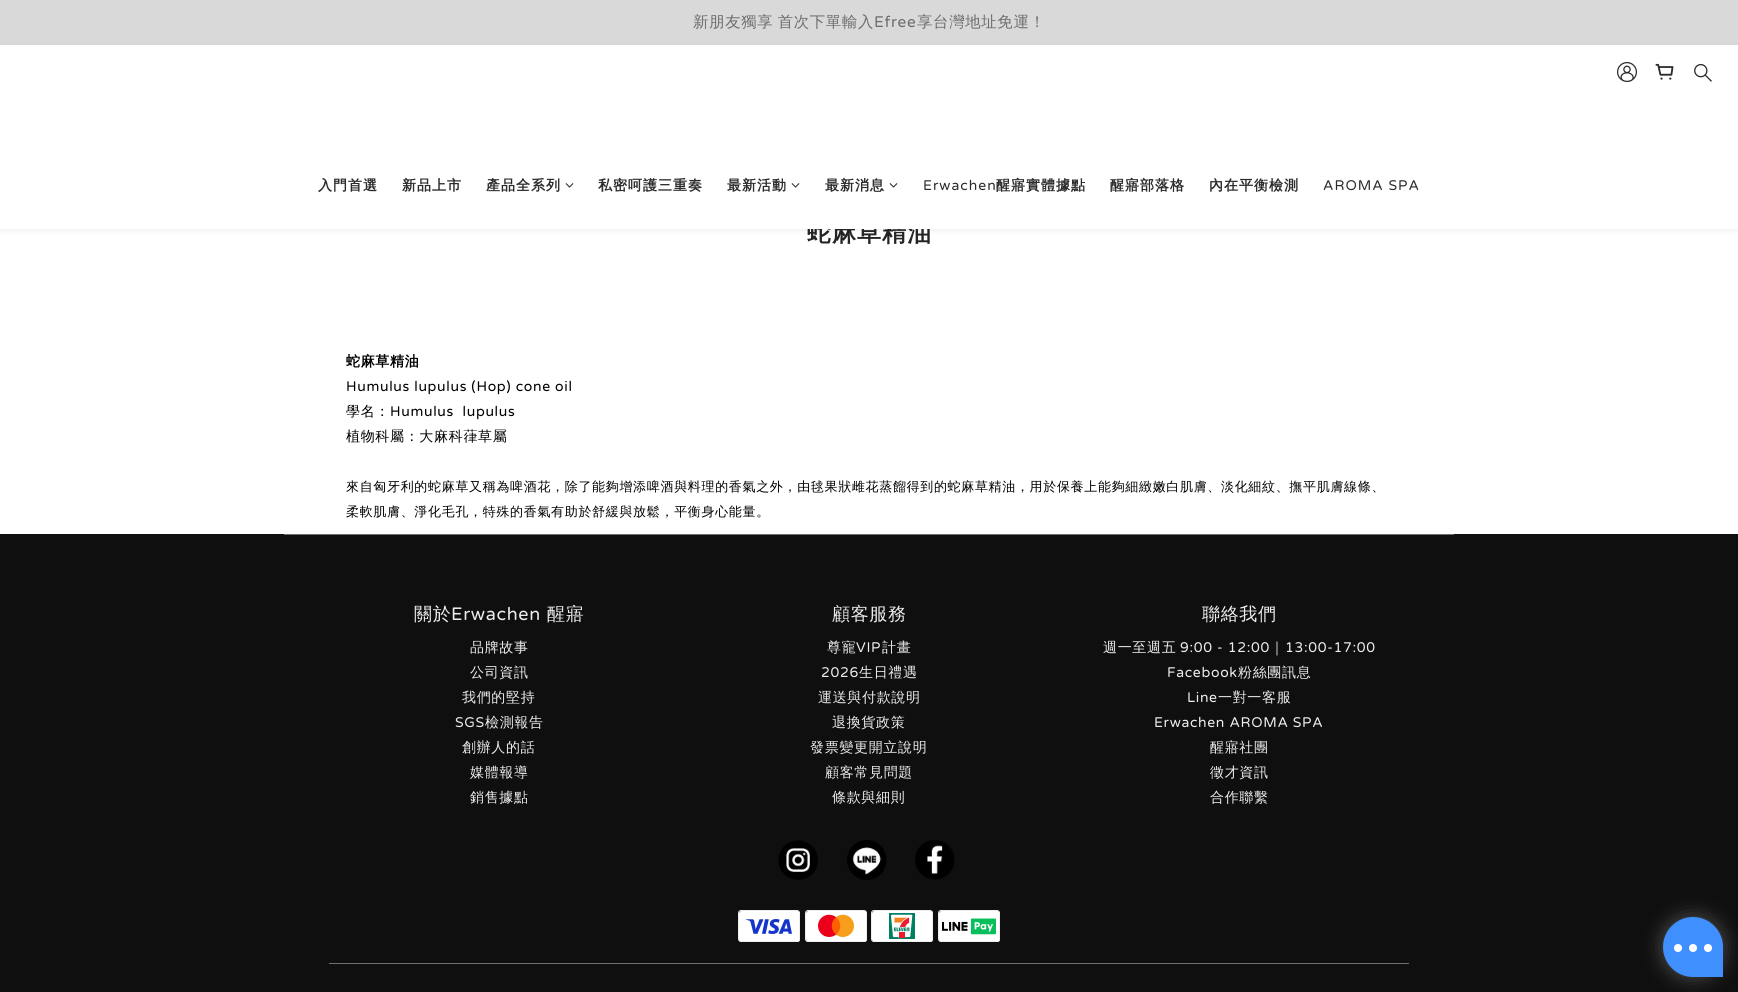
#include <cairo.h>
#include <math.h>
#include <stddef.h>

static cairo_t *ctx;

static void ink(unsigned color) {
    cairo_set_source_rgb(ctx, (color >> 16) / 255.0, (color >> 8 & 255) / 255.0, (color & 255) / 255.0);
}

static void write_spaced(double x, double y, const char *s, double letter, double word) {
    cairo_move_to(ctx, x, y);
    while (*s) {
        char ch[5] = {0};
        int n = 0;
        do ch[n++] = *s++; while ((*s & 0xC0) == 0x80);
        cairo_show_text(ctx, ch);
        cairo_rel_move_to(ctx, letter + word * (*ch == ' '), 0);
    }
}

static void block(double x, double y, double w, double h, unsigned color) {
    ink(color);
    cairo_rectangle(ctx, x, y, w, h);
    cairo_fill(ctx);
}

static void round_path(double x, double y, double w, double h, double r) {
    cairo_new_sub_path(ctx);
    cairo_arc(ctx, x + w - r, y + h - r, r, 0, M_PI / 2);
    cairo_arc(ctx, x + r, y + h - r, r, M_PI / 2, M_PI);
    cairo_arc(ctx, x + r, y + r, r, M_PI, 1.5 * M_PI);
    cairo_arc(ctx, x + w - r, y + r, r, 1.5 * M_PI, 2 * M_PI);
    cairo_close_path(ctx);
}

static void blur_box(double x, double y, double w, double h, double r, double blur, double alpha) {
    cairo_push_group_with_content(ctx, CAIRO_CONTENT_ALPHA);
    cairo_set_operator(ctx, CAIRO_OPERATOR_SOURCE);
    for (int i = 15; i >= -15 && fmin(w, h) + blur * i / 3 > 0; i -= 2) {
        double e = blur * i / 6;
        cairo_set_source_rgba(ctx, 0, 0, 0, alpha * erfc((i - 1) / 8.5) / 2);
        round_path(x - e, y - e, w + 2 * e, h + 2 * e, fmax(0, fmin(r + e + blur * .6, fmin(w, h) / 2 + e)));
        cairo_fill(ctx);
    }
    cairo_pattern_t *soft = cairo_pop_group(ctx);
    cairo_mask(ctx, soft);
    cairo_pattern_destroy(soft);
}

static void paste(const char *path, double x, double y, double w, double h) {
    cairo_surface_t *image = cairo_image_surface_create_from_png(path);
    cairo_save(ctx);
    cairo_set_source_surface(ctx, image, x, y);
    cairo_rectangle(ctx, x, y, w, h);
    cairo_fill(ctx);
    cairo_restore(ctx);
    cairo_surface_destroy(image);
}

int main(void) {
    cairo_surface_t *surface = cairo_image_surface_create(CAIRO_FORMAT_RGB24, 1738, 992);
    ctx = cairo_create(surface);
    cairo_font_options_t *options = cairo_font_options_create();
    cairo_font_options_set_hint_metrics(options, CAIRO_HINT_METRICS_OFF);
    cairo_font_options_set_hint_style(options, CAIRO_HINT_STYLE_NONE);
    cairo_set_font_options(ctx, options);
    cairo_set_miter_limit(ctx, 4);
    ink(0xffffff);
    cairo_paint(ctx);
    block(0, 0, 1738, 45, 0xd9d9d9);
    cairo_select_font_face(ctx, "WenQuanYi Zen Hei Medium", CAIRO_FONT_SLANT_NORMAL, CAIRO_FONT_WEIGHT_NORMAL);
    cairo_set_font_size(ctx, 15.4);
    ink(0x6d6d6d);
    write_spaced(693, 27, "新朋友獨享 首次下單輸入", 0.67, -1);
    cairo_select_font_face(ctx, "Varela Round", CAIRO_FONT_SLANT_NORMAL, CAIRO_FONT_WEIGHT_NORMAL);
    write_spaced(874, 27, "Efree", 0.67, 0);
    cairo_select_font_face(ctx, "WenQuanYi Zen Hei Medium", CAIRO_FONT_SLANT_NORMAL, CAIRO_FONT_WEIGHT_NORMAL);
    write_spaced(917, 27, "享台灣地址免運！", 0.67, 0);
    ink(0x000000);
    blur_box(0, 47, 1738, 184, 0, 3, 0.06);
    cairo_select_font_face(ctx, "WenQuanYi Zen Hei", CAIRO_FONT_SLANT_NORMAL, CAIRO_FONT_WEIGHT_BOLD);
    cairo_set_font_size(ctx, 24);
    ink(0x242424);
    write_spaced(807, 241, "蛇麻草精油", 1, 0);
    block(0, 45, 1738, 184, 0xffffff);
    paste("pic1.png", 1617, 62, 20, 20);
    paste("pic2.png", 1655, 63, 19, 17);
    paste("pic3.png", 1694, 63, 18, 19);
    cairo_set_font_size(ctx, 14);
    ink(0x2c2c2c);
    write_spaced(318, 190, "入門首選", 1, 0);
    write_spaced(402, 190, "新品上市", 1, 0);
    write_spaced(486, 190, "產品全系列", 1, 0);
    paste("pic4.png", 565, 183, 9, 5);
    write_spaced(598, 190, "私密呵護三重奏", 1, 0);
    write_spaced(727, 190, "最新活動", 1, 0);
    paste("pic4.png", 791, 183, 9, 5);
    write_spaced(825, 190, "最新消息", 1, 0);
    paste("pic4.png", 889, 183, 9, 5);
    cairo_select_font_face(ctx, "Varela Round", CAIRO_FONT_SLANT_NORMAL, CAIRO_FONT_WEIGHT_NORMAL);
    write_spaced(923, 190, "Erwachen", 1, 0);
    cairo_select_font_face(ctx, "WenQuanYi Zen Hei", CAIRO_FONT_SLANT_NORMAL, CAIRO_FONT_WEIGHT_BOLD);
    write_spaced(996, 190, "醒寤實體據點", 1, 0);
    write_spaced(1110, 190, "醒寤部落格", 1, 0);
    write_spaced(1209, 190, "內在平衡檢測", 1, 0);
    cairo_select_font_face(ctx, "Varela Round", CAIRO_FONT_SLANT_NORMAL, CAIRO_FONT_WEIGHT_NORMAL);
    write_spaced(1323, 190, "AROMA SPA", 1, 0);
    cairo_select_font_face(ctx, "WenQuanYi Zen Hei", CAIRO_FONT_SLANT_NORMAL, CAIRO_FONT_WEIGHT_BOLD);
    ink(0x000000);
    write_spaced(346, 366, "蛇麻草精油", 0.67, 0);
    cairo_select_font_face(ctx, "Varela Round", CAIRO_FONT_SLANT_NORMAL, CAIRO_FONT_WEIGHT_NORMAL);
    write_spaced(346, 391, "Humulus lupulus (Hop) cone oil", 0.67, 0);
    cairo_select_font_face(ctx, "WenQuanYi Zen Hei Medium", CAIRO_FONT_SLANT_NORMAL, CAIRO_FONT_WEIGHT_NORMAL);
    write_spaced(346, 416, "學名：", 0.67, 0);
    cairo_select_font_face(ctx, "Varela Round", CAIRO_FONT_SLANT_NORMAL, CAIRO_FONT_WEIGHT_NORMAL);
    write_spaced(390, 416, "Humulus  lupulus", 0.67, 0);
    cairo_select_font_face(ctx, "WenQuanYi Zen Hei Medium", CAIRO_FONT_SLANT_NORMAL, CAIRO_FONT_WEIGHT_NORMAL);
    write_spaced(346, 441, "植物科屬：大麻科葎草屬", 0.67, 0);
    cairo_set_font_size(ctx, 13);
    write_spaced(346, 491, "來自匈牙利的蛇麻草又稱為啤酒花，除了能夠增添啤酒與料理的香氣之外，由毬果狀雌花蒸餾得到的蛇麻草精油，用於保養上能夠細緻嫩白肌膚、淡化細紋、撫平肌膚線條、", 0.67, 0);
    write_spaced(346, 516, "柔軟肌膚、淨化毛孔，特殊的香氣有助於舒緩與放鬆，平衡身心能量。", 0.67, 0);
    block(0, 534, 1738, 458, 0x0f0f0f);
    block(284, 534, 1170, 1, 0x6e6e6e);
    cairo_set_font_size(ctx, 18);
    ink(0xededed);
    write_spaced(414, 620, "關於", 0.67, 0);
    cairo_select_font_face(ctx, "Varela Round", CAIRO_FONT_SLANT_NORMAL, CAIRO_FONT_WEIGHT_NORMAL);
    write_spaced(451, 620, "Erwachen", 0.67, 0);
    cairo_select_font_face(ctx, "WenQuanYi Zen Hei Medium", CAIRO_FONT_SLANT_NORMAL, CAIRO_FONT_WEIGHT_NORMAL);
    write_spaced(547, 620, "醒寤", 0.67, 0);
    cairo_set_font_size(ctx, 14);
    write_spaced(470, 652, "品牌故事", 0.67, 0);
    write_spaced(470, 677, "公司資訊", 0.67, 0);
    write_spaced(462, 702, "我們的堅持", 0.67, 0);
    cairo_select_font_face(ctx, "Varela Round", CAIRO_FONT_SLANT_NORMAL, CAIRO_FONT_WEIGHT_NORMAL);
    write_spaced(455, 727, "SGS", 0.67, 0);
    cairo_select_font_face(ctx, "WenQuanYi Zen Hei Medium", CAIRO_FONT_SLANT_NORMAL, CAIRO_FONT_WEIGHT_NORMAL);
    write_spaced(485, 727, "檢測報告", 0.67, 0);
    write_spaced(462, 752, "創辦人的話", 0.67, 0);
    write_spaced(470, 777, "媒體報導", 0.67, 0);
    write_spaced(470, 802, "銷售據點", 0.67, 0);
    cairo_set_font_size(ctx, 18);
    write_spaced(832, 620, "顧客服務", 0.67, 0);
    cairo_set_font_size(ctx, 14);
    write_spaced(827, 652, "尊寵", 0.67, 0);
    cairo_select_font_face(ctx, "Varela Round", CAIRO_FONT_SLANT_NORMAL, CAIRO_FONT_WEIGHT_NORMAL);
    write_spaced(856, 652, "VIP", 0.67, 0);
    cairo_select_font_face(ctx, "WenQuanYi Zen Hei Medium", CAIRO_FONT_SLANT_NORMAL, CAIRO_FONT_WEIGHT_NORMAL);
    write_spaced(882, 652, "計畫", 0.67, 0);
    cairo_select_font_face(ctx, "Varela Round", CAIRO_FONT_SLANT_NORMAL, CAIRO_FONT_WEIGHT_NORMAL);
    write_spaced(821, 677, "2026", 0.67, 0);
    cairo_select_font_face(ctx, "WenQuanYi Zen Hei Medium", CAIRO_FONT_SLANT_NORMAL, CAIRO_FONT_WEIGHT_NORMAL);
    write_spaced(859, 677, "生日禮遇", 0.67, 0);
    write_spaced(818, 702, "運送與付款說明", 0.67, 0);
    write_spaced(832, 727, "退換貨政策", 0.67, 0);
    write_spaced(810, 752, "發票變更開立說明", 0.67, 0);
    write_spaced(825, 777, "顧客常見問題", 0.67, 0);
    write_spaced(832, 802, "條款與細則", 0.67, 0);
    cairo_set_font_size(ctx, 18);
    write_spaced(1202, 620, "聯絡我們", 0.67, 0);
    cairo_set_font_size(ctx, 14);
    write_spaced(1103, 652, "週一至週五", 0.67, 0);
    cairo_select_font_face(ctx, "Varela Round", CAIRO_FONT_SLANT_NORMAL, CAIRO_FONT_WEIGHT_NORMAL);
    write_spaced(1180, 652, "9:00 - 12:00", 0.67, 0);
    cairo_select_font_face(ctx, "WenQuanYi Zen Hei Medium", CAIRO_FONT_SLANT_NORMAL, CAIRO_FONT_WEIGHT_NORMAL);
    write_spaced(1270, 652, "｜", 0.67, 0);
    cairo_select_font_face(ctx, "Varela Round", CAIRO_FONT_SLANT_NORMAL, CAIRO_FONT_WEIGHT_NORMAL);
    write_spaced(1285, 652, "13:00-17:00", 0.67, 0);
    write_spaced(1167, 677, "Facebook", 0.67, 0);
    cairo_select_font_face(ctx, "WenQuanYi Zen Hei Medium", CAIRO_FONT_SLANT_NORMAL, CAIRO_FONT_WEIGHT_NORMAL);
    write_spaced(1238, 677, "粉絲團訊息", 0.67, 0);
    cairo_select_font_face(ctx, "Varela Round", CAIRO_FONT_SLANT_NORMAL, CAIRO_FONT_WEIGHT_NORMAL);
    write_spaced(1187, 702, "Line", 0.67, 0);
    cairo_select_font_face(ctx, "WenQuanYi Zen Hei Medium", CAIRO_FONT_SLANT_NORMAL, CAIRO_FONT_WEIGHT_NORMAL);
    write_spaced(1218, 702, "一對一客服", 0.67, 0);
    cairo_select_font_face(ctx, "Varela Round", CAIRO_FONT_SLANT_NORMAL, CAIRO_FONT_WEIGHT_NORMAL);
    write_spaced(1154, 727, "Erwachen AROMA SPA", 0.67, 0);
    cairo_select_font_face(ctx, "WenQuanYi Zen Hei Medium", CAIRO_FONT_SLANT_NORMAL, CAIRO_FONT_WEIGHT_NORMAL);
    write_spaced(1210, 752, "醒寤社團", 0.67, 0);
    write_spaced(1210, 777, "徵才資訊", 0.67, 0);
    write_spaced(1210, 802, "合作聯繫", 0.67, 0);
    paste("pic5.png", 778, 840, 40, 40);
    paste("pic6.png", 847, 840, 40, 40);
    paste("pic7.png", 915, 840, 40, 40);
    paste("pic8.png", 738, 910, 62, 32);
    paste("pic9.png", 805, 910, 62, 32);
    paste("pic10.png", 871, 910, 62, 32);
    paste("pic11.png", 938, 910, 62, 32);
    block(329, 963, 1080, 1, 0x6e6e6e);
    ink(0x777777);
    blur_box(1663, 917, 60, 60, 30, 10, 0.64);
    ink(0x408fff);
    cairo_new_path(ctx);
    cairo_move_to(ctx, 1693, 917);
    cairo_curve_to(ctx, 1709.5, 917, 1723, 930.5, 1723, 947);
    cairo_line_to(ctx, 1723, 977);
    cairo_line_to(ctx, 1693, 977);
    cairo_curve_to(ctx, 1676.5, 977, 1663, 963.5, 1663, 947);
    cairo_curve_to(ctx, 1663, 930.5, 1676.5, 917, 1693, 917);
    cairo_close_path(ctx);
    cairo_fill(ctx);
    ink(0xffffff);
    cairo_arc(ctx, 1678, 948, 4, 0, 2 * M_PI);
    cairo_fill(ctx);
    cairo_arc(ctx, 1693, 948, 4, 0, 2 * M_PI);
    cairo_fill(ctx);
    cairo_arc(ctx, 1708, 948, 4, 0, 2 * M_PI);
    cairo_fill(ctx);
    cairo_surface_write_to_png(surface, "screenshot.png");
    cairo_font_options_destroy(options);
    cairo_destroy(ctx);
    cairo_surface_destroy(surface);
    return 0;
}
